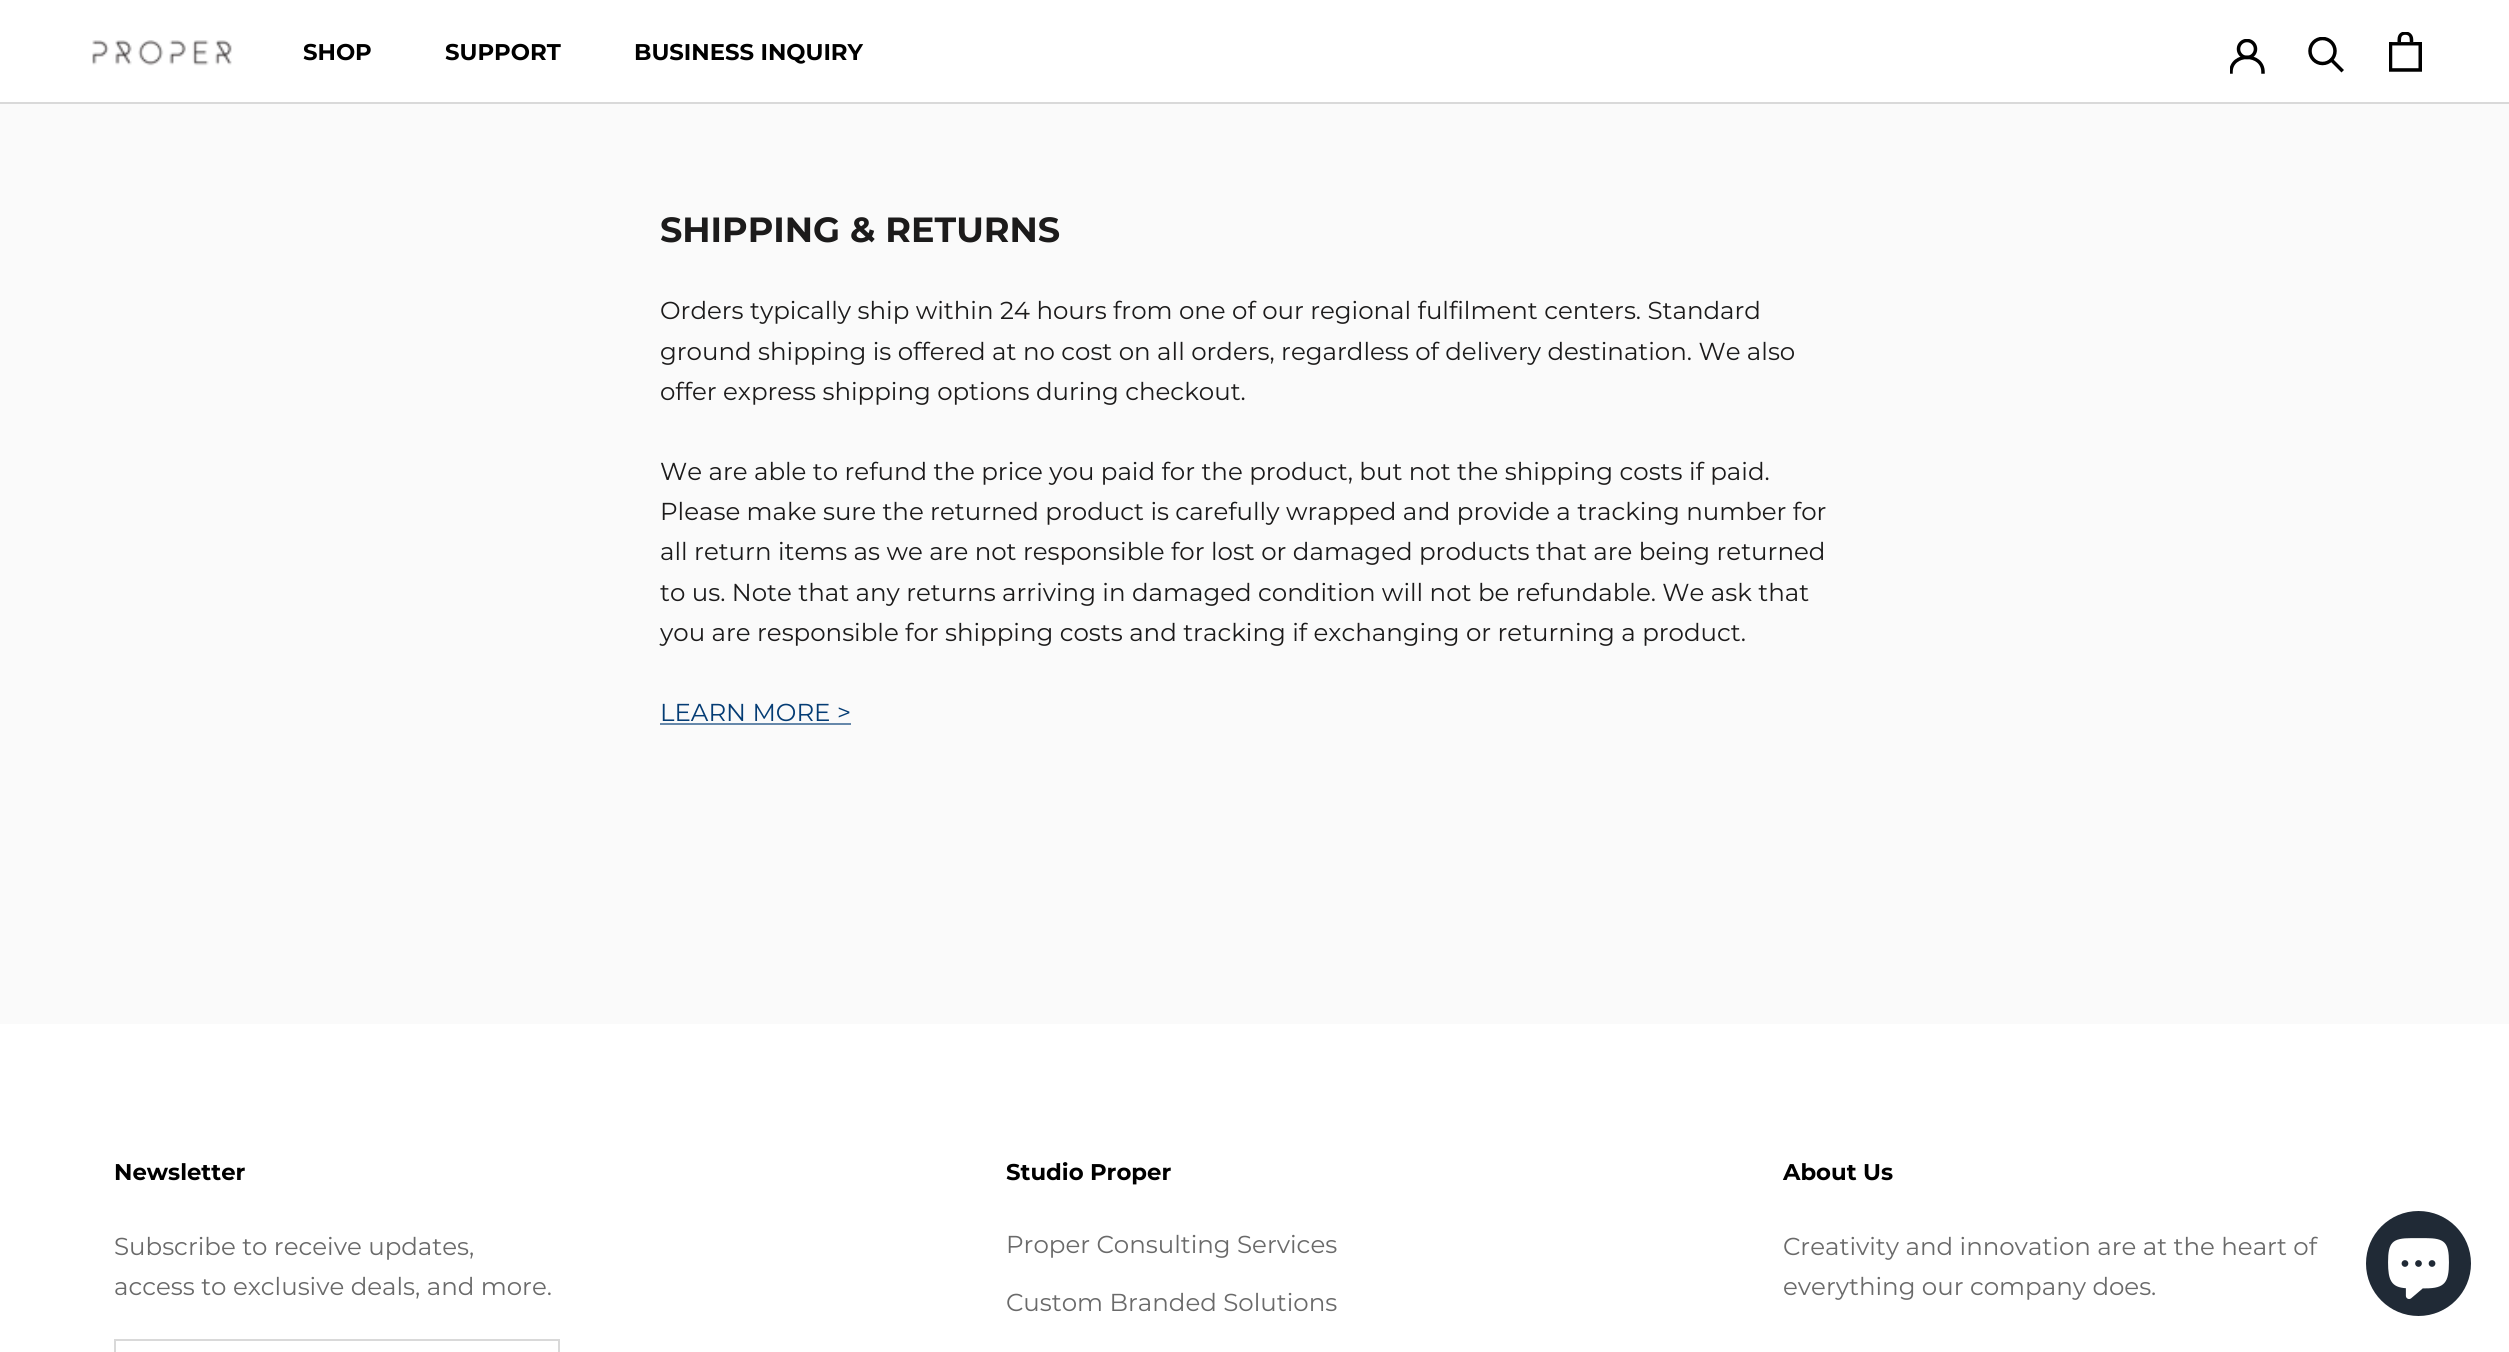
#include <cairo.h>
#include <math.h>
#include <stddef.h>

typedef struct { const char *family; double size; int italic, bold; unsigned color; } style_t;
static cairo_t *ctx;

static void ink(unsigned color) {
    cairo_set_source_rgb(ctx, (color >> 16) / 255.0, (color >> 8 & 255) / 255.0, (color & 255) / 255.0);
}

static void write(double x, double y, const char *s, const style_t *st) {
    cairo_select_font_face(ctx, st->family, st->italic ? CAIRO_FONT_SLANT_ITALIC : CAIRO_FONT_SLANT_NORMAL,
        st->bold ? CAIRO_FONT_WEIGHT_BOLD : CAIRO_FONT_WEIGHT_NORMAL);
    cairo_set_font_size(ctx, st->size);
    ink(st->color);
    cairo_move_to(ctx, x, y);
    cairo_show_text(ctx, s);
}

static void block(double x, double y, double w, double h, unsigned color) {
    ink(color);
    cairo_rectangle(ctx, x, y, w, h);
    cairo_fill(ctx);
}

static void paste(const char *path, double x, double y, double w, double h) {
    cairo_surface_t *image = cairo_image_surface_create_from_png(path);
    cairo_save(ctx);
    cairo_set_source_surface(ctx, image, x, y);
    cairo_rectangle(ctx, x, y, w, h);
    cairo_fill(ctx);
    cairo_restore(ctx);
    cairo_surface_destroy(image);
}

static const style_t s1 = {"Montserrat", 22.75, 0, 1, 0x000000};
static const style_t s2 = {"Montserrat", 35, 0, 1, 0x1c1b1b};
static const style_t s3 = {"Montserrat", 24.5, 0, 0, 0x1c1b1b};
static const style_t s4 = {"Montserrat", 24.5, 0, 0, 0x043c74};
static const style_t s5 = {"Montserrat", 24.5, 0, 0, 0x6a6a6a};

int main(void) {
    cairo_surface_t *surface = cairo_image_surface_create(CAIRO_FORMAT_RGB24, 2509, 1352);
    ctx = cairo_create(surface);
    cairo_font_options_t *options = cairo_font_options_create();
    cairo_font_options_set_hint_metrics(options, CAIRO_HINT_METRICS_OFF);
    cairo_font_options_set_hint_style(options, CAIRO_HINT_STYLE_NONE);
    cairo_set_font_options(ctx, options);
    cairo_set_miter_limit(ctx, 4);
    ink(0xfafafa);
    cairo_paint(ctx);
    block(0, 0, 2509, 102, 0xffffff);
    block(0, 102, 2509, 2, 0xd9d9d9);
    paste("pic1.png", 92, 40, 140, 26);
    write(303, 60, "SHOP", &s1);
    write(445, 60, "SUPPORT", &s1);
    write(634, 60, "BUSINESS INQUIRY", &s1);
    cairo_save(ctx);
    cairo_rectangle(ctx, 2230, 39, 35, 35);
    cairo_clip(ctx);
    cairo_new_path(ctx);
    cairo_move_to(ctx, 2231, 72);
    cairo_curve_to(ctx, 2231, 52.5, 2263, 52.5, 2263, 72);
    cairo_set_line_width(ctx, 3.5);
    cairo_set_line_cap(ctx, CAIRO_LINE_CAP_SQUARE);
    cairo_stroke(ctx);
    cairo_arc(ctx, 2247, 49, 8.5, 0, 2 * M_PI);
    cairo_set_line_cap(ctx, CAIRO_LINE_CAP_BUTT);
    cairo_stroke(ctx);
    cairo_restore(ctx);
    cairo_new_path(ctx);
    cairo_move_to(ctx, 2341.5, 70);
    cairo_line_to(ctx, 2331.5, 60);
    cairo_set_line_width(ctx, 3.5);
    cairo_set_line_cap(ctx, CAIRO_LINE_CAP_SQUARE);
    cairo_stroke(ctx);
    cairo_save(ctx);
    cairo_rectangle(ctx, 2308, 37, 37, 37);
    cairo_clip(ctx);
    cairo_arc(ctx, 2322.5, 51, 12.5, 0, 2 * M_PI);
    cairo_set_line_cap(ctx, CAIRO_LINE_CAP_BUTT);
    cairo_stroke(ctx);
    cairo_restore(ctx);
    paste("pic2.png", 2389, 32, 33, 40);
    write(660, 242, "SHIPPING & RETURNS", &s2);
    write(660, 319, "Orders typically ship within 24 hours from one of our regional fulfilment centers. Standard", &s3);
    write(660, 360, "ground shipping is offered at no cost on all orders, regardless of delivery destination. We also", &s3);
    write(660, 400, "offer express shipping options during checkout.", &s3);
    write(660, 480, "We are able to refund the price you paid for the product, but not the shipping costs if paid.", &s3);
    write(660, 520, "Please make sure the returned product is carefully wrapped and provide a tracking number for", &s3);
    write(660, 560, "all return items as we are not responsible for lost or damaged products that are being returned", &s3);
    write(660, 601, "to us. Note that any returns arriving in damaged condition will not be refundable. We ask that", &s3);
    write(660, 641, "you are responsible for shipping costs and tracking if exchanging or returning a product.", &s3);
    write(660, 721, "LEARN MORE >", &s4);
    block(660, 723, 191, 2, 0x6688aa);
    block(0, 1024, 2509, 328, 0xffffff);
    write(114, 1180, "Newsletter", &s1);
    write(114, 1255, "Subscribe to receive updates,", &s5);
    write(114, 1295, "access to exclusive deals, and more.", &s5);
    cairo_rectangle(ctx, 115, 1340, 444, 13);
    ink(0xd9d9d9);
    cairo_set_line_width(ctx, 2);
    cairo_set_line_cap(ctx, CAIRO_LINE_CAP_BUTT);
    cairo_stroke(ctx);
    write(1006, 1180, "Studio Proper", &s1);
    write(1006, 1253, "Proper Consulting Services", &s5);
    write(1006, 1311, "Custom Branded Solutions", &s5);
    write(1783, 1180, "About Us", &s1);
    write(1783, 1255, "Creativity and innovation are at the heart of", &s5);
    write(1783, 1295, "everything our company does.", &s5);
    ink(0x202a36);
    cairo_new_path(ctx);
    cairo_arc(ctx, 2418.5, 1263.5, 52.5, 0, 2 * M_PI);
    cairo_fill(ctx);
    paste("pic3.png", 2388, 1238, 61, 61);
    cairo_surface_write_to_png(surface, "screenshot.png");
    cairo_font_options_destroy(options);
    cairo_destroy(ctx);
    cairo_surface_destroy(surface);
    return 0;
}
